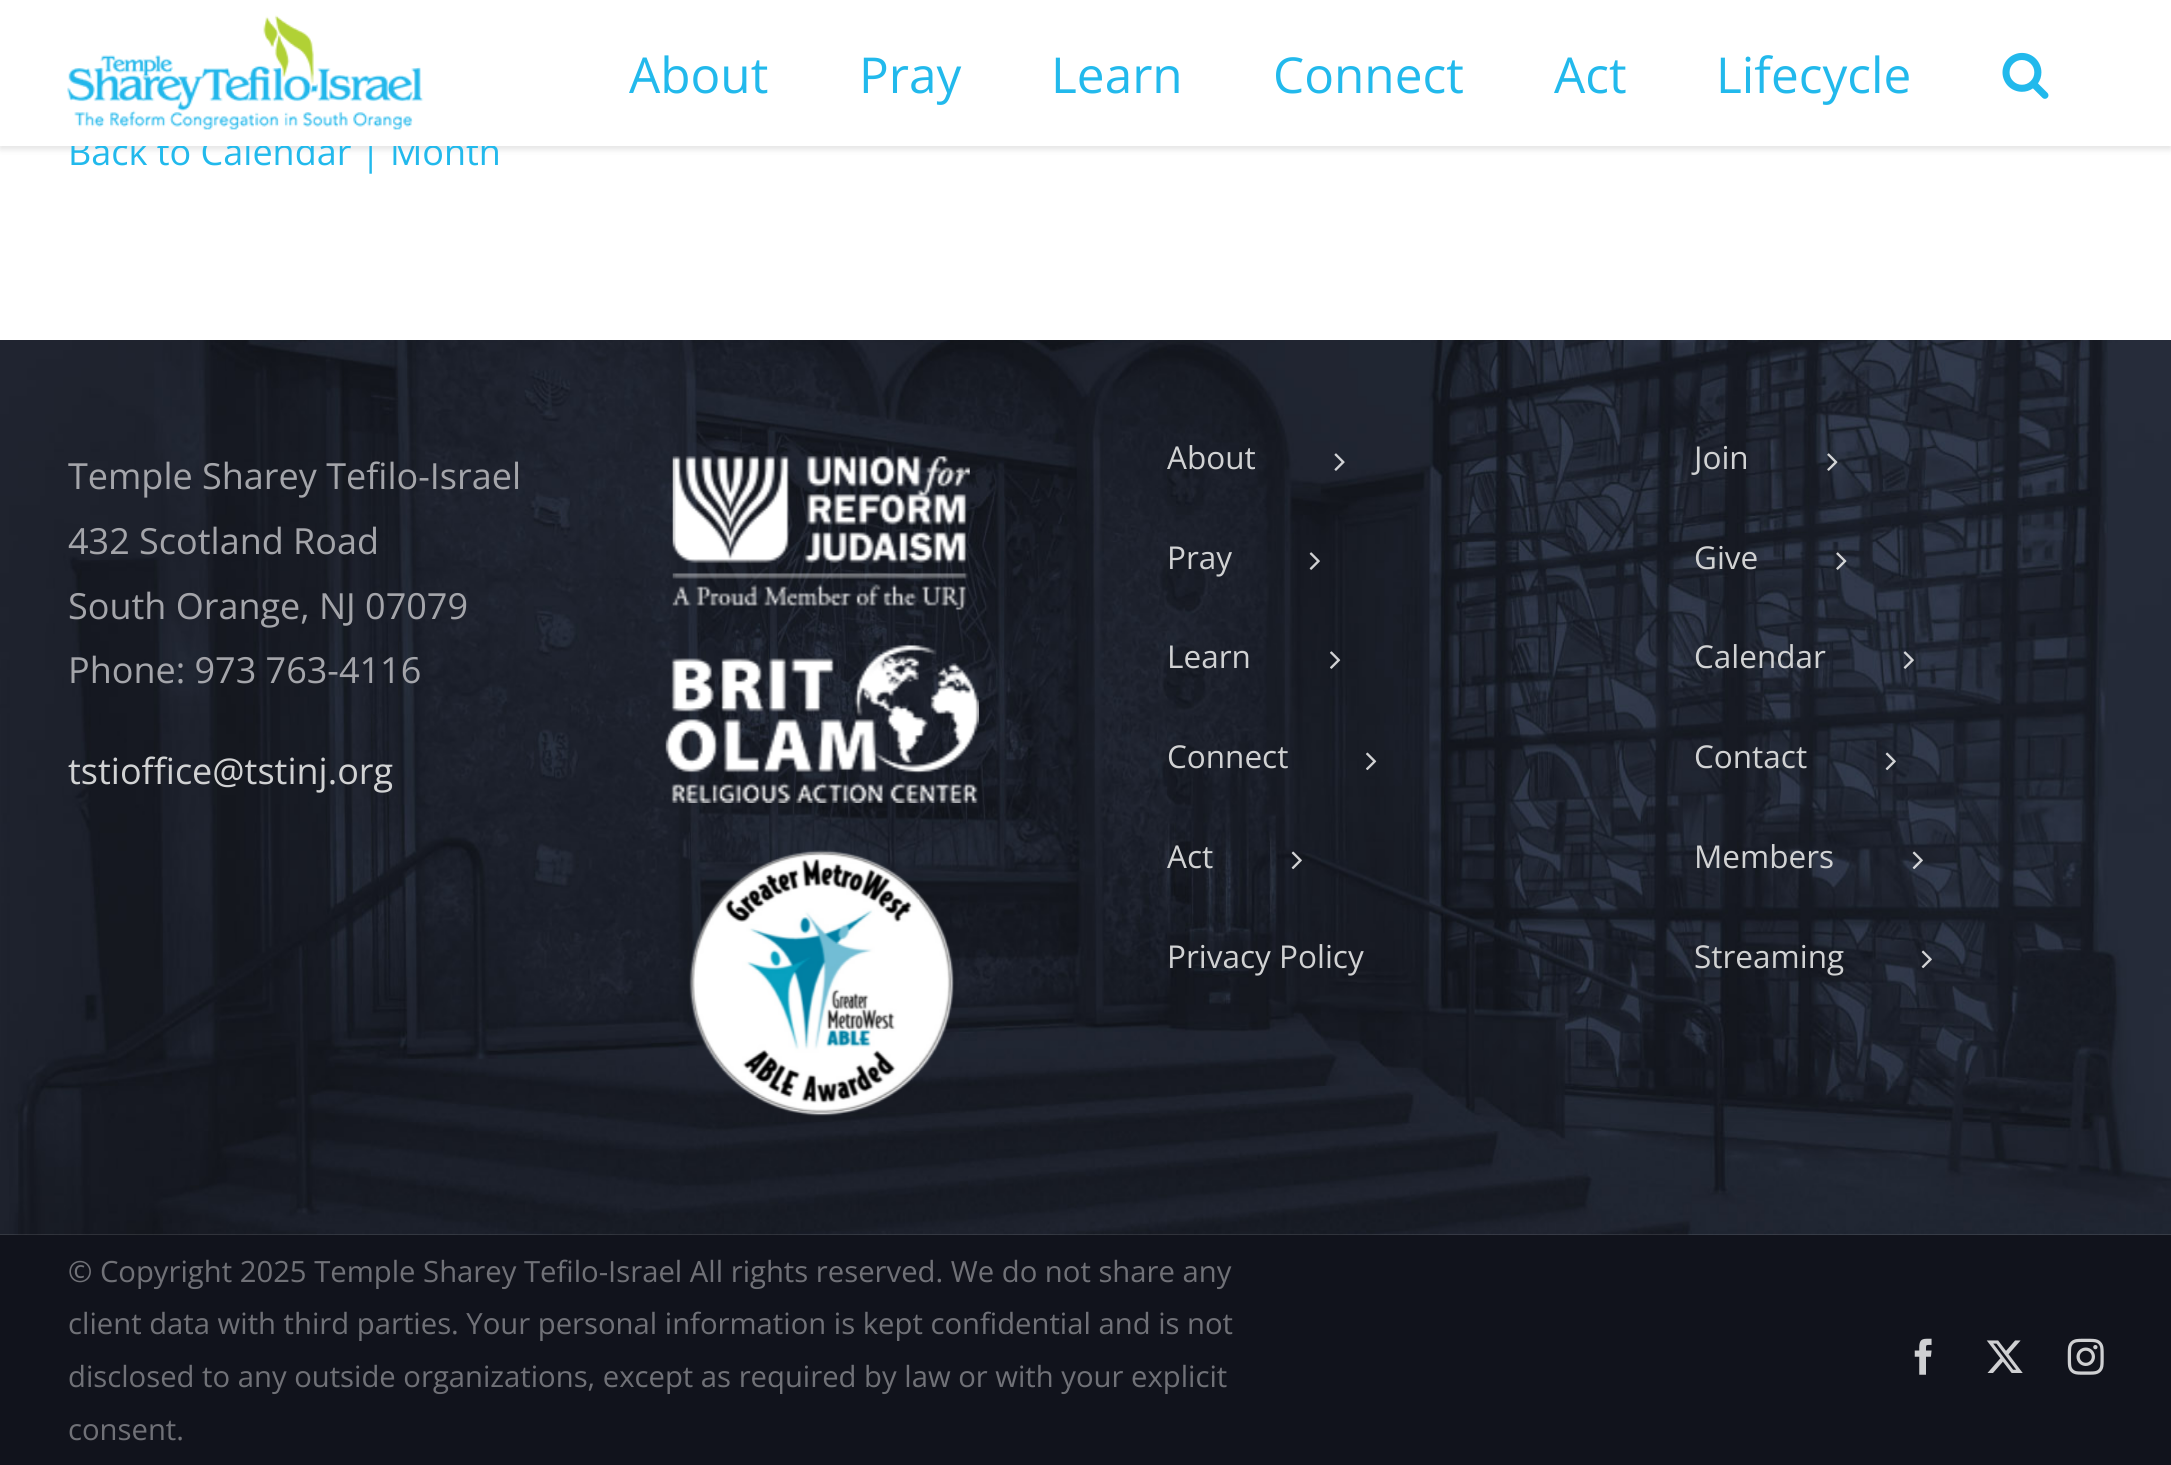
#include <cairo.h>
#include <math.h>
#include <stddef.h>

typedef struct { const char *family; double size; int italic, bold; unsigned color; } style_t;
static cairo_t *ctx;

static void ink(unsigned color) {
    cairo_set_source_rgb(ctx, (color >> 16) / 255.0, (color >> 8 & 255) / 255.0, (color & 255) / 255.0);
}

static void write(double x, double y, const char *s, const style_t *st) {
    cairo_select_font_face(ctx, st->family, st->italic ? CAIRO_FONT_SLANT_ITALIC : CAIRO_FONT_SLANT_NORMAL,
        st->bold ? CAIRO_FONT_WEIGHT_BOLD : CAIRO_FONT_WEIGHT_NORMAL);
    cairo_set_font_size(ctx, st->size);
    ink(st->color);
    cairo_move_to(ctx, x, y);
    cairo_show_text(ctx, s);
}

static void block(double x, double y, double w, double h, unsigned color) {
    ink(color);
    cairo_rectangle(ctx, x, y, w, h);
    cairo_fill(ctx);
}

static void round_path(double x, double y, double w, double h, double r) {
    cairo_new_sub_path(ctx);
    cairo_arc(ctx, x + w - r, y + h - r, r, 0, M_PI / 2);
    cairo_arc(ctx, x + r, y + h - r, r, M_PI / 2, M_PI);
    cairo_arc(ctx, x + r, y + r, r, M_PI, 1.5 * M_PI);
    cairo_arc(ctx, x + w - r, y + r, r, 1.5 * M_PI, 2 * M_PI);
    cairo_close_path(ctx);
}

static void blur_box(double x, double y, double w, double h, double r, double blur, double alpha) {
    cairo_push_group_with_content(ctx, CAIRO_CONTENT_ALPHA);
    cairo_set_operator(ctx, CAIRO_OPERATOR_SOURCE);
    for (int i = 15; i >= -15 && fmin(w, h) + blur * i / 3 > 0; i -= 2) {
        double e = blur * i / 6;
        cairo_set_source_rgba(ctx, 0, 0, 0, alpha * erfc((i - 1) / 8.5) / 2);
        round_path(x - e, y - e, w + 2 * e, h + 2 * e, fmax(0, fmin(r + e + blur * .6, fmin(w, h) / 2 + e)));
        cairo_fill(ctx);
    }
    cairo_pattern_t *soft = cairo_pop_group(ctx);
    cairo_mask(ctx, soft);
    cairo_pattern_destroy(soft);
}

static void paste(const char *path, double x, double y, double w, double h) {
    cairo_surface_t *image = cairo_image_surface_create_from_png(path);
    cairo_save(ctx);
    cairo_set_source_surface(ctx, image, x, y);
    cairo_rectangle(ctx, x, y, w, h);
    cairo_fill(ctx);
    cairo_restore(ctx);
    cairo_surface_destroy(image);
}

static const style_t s1 = {"Open Sans", 36, 0, 0, 0x22b9ec};
static const style_t s2 = {"Open Sans", 49.5, 0, 0, 0x22b9ec};
static const style_t s3 = {"Open Sans", 36, 0, 0, 0xa4a5aa};
static const style_t s4 = {"Open Sans", 36, 0, 0, 0xd1d2d3};
static const style_t s5 = {"Open Sans", 31.5, 0, 0, 0xd1d2d3};
static const style_t s6 = {"Open Sans", 29.25, 0, 0, 0x707177};

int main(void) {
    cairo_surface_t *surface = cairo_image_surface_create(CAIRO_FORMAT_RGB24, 2171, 1465);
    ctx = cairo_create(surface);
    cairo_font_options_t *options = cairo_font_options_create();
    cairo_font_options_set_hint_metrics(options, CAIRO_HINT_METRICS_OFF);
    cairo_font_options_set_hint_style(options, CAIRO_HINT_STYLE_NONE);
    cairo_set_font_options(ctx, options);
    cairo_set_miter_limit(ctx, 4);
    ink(0xffffff);
    cairo_paint(ctx);
    ink(0x000000);
    blur_box(0, 2, 2171, 147, 0, 3.5, 0.12);
    write(68, 165, "Back to Calendar | Month", &s1);
    block(0, 0, 2171, 146, 0xffffff);
    paste("pic1.png", 67, 15, 357, 115);
    write(629, 93, "About", &s2);
    write(859, 93, "Pray", &s2);
    write(1051, 93, "Learn", &s2);
    write(1273, 93, "Connect", &s2);
    write(1554, 93, "Act", &s2);
    write(1716, 93, "Lifecycle", &s2);
    paste("pic2.png", 2002, 52, 47, 47);
    paste("pic3.png", 0, 340, 2171, 895);
    write(68, 489, "Temple Sharey Tefilo-Israel", &s3);
    write(68, 554, "432 Scotland Road", &s3);
    write(68, 619, "South Orange, NJ 07079", &s3);
    write(68, 683, "Phone: 973 763-4116", &s3);
    write(68, 784, "tstioffice@tstinj.org", &s4);
    paste("pic4.png", 672, 456, 298, 154);
    paste("pic5.png", 665, 645, 314, 158);
    paste("pic6.png", 689, 850, 265, 266);
    write(1167, 469, "About", &s5);
    paste("pic7.png", 1334, 453, 11, 18);
    write(1167, 569, "Pray", &s5);
    paste("pic8.png", 1309, 552, 11, 18);
    write(1167, 668, "Learn", &s5);
    paste("pic9.png", 1330, 651, 11, 18);
    write(1167, 768, "Connect", &s5);
    paste("pic10.png", 1366, 752, 11, 19);
    write(1167, 868, "Act", &s5);
    paste("pic11.png", 1291, 851, 11, 19);
    write(1167, 968, "Privacy Policy", &s5);
    write(1694, 469, "Join", &s5);
    paste("pic12.png", 1827, 453, 11, 18);
    write(1694, 569, "Give", &s5);
    paste("pic13.png", 1836, 552, 11, 18);
    write(1694, 668, "Calendar", &s5);
    paste("pic14.png", 1903, 651, 11, 18);
    write(1694, 768, "Contact", &s5);
    paste("pic15.png", 1885, 752, 11, 19);
    write(1694, 868, "Members", &s5);
    paste("pic16.png", 1912, 851, 11, 19);
    write(1694, 968, "Streaming", &s5);
    paste("pic17.png", 1921, 950, 11, 19);
    block(0, 1235, 2171, 230, 0x11131c);
    write(68, 1282, "© Copyright 2025 Temple Sharey Tefilo-Israel All rights reserved. We do not share any", &s6);
    write(68, 1334, "client data with third parties. Your personal information is kept confidential and is not", &s6);
    write(68, 1387, "disclosed to any outside organizations, except as required by law or with your explicit", &s6);
    write(68, 1440, "consent.", &s6);
    paste("pic18.png", 1914, 1338, 18, 37);
    paste("pic19.png", 1986, 1340, 37, 33);
    paste("pic20.png", 2067, 1338, 37, 37);
    cairo_surface_write_to_png(surface, "screenshot.png");
    cairo_font_options_destroy(options);
    cairo_destroy(ctx);
    cairo_surface_destroy(surface);
    return 0;
}
